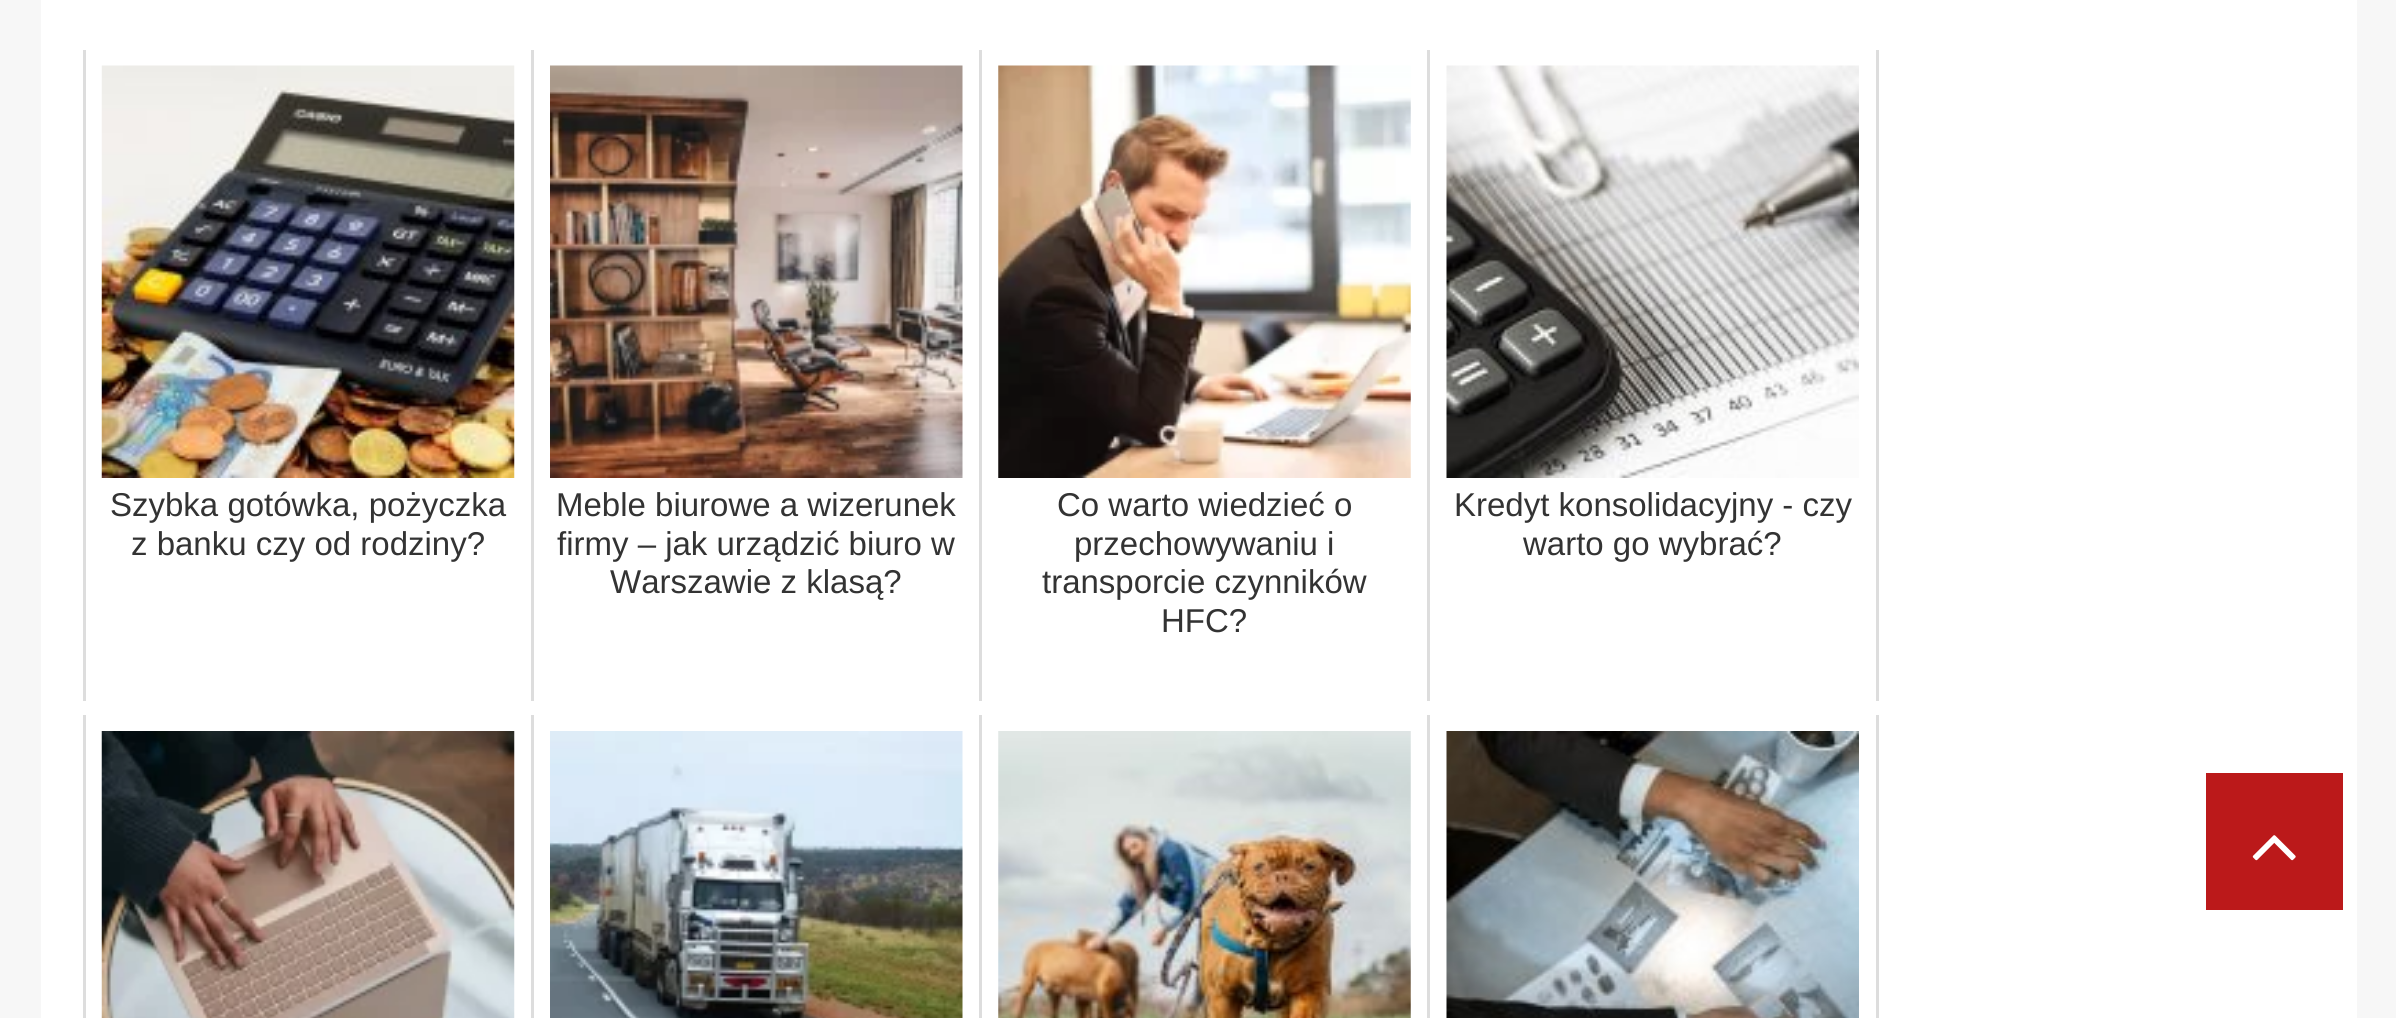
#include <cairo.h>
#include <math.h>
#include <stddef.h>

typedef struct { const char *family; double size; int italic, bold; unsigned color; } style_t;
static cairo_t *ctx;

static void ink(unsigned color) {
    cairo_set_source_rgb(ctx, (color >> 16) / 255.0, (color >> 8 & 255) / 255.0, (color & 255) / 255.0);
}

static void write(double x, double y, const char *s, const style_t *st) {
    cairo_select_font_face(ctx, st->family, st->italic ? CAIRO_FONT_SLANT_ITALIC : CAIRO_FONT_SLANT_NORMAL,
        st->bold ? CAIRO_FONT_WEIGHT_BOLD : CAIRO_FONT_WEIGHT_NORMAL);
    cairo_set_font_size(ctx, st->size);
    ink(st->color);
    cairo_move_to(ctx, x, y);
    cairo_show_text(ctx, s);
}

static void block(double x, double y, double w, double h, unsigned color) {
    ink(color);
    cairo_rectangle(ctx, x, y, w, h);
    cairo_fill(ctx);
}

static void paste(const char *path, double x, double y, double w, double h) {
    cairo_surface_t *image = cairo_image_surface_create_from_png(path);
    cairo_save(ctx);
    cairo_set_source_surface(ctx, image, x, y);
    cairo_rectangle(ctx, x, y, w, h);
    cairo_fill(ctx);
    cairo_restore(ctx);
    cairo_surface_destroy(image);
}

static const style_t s1 = {"Liberation Sans", 33, 0, 0, 0x333333};

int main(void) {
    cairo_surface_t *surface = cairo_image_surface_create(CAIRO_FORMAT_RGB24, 2396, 1018);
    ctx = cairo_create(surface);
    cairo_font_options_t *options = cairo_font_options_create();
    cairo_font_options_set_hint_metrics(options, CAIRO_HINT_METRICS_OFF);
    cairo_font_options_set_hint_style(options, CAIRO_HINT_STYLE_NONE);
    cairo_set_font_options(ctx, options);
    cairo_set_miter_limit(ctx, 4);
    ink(0xf7f7f7);
    cairo_paint(ctx);
    block(41, 0, 2316, 1018, 0xffffff);
    block(83, 50, 3, 651, 0xdddddd);
    paste("pic1.png", 101, 65, 414, 413);
    write(110, 516, "Szybka gotówka, pożyczka", &s1);
    write(131, 555, "z banku czy od rodziny?", &s1);
    block(531, 50, 3, 651, 0xdddddd);
    paste("pic2.png", 550, 65, 413, 413);
    write(556, 516, "Meble biurowe a wizerunek", &s1);
    write(557, 555, "firmy – jak urządzić biuro w", &s1);
    write(610, 593, "Warszawie z klasą?", &s1);
    block(979, 50, 3, 651, 0xdddddd);
    paste("pic3.png", 998, 65, 413, 413);
    write(1057, 516, "Co warto wiedzieć o", &s1);
    write(1074, 555, "przechowywaniu i", &s1);
    write(1042, 593, "transporcie czynników", &s1);
    write(1161, 632, "HFC?", &s1);
    block(1876, 50, 3, 651, 0xdddddd);
    block(1427, 50, 3, 651, 0xdddddd);
    paste("pic4.png", 1446, 65, 413, 413);
    write(1454, 516, "Kredyt konsolidacyjny - czy", &s1);
    write(1523, 555, "warto go wybrać?", &s1);
    block(83, 715, 3, 303, 0xdddddd);
    paste("pic5.png", 101, 731, 414, 287);
    block(531, 715, 3, 303, 0xdddddd);
    paste("pic6.png", 550, 731, 413, 287);
    block(979, 715, 3, 303, 0xdddddd);
    paste("pic7.png", 998, 731, 413, 287);
    block(1876, 715, 3, 303, 0xdddddd);
    block(1427, 715, 3, 303, 0xdddddd);
    paste("pic8.png", 1446, 731, 413, 287);
    block(2206, 773, 137, 137, 0xbb191a);
    paste("pic9.png", 2252, 835, 44, 26);
    cairo_surface_write_to_png(surface, "screenshot.png");
    cairo_font_options_destroy(options);
    cairo_destroy(ctx);
    cairo_surface_destroy(surface);
    return 0;
}
